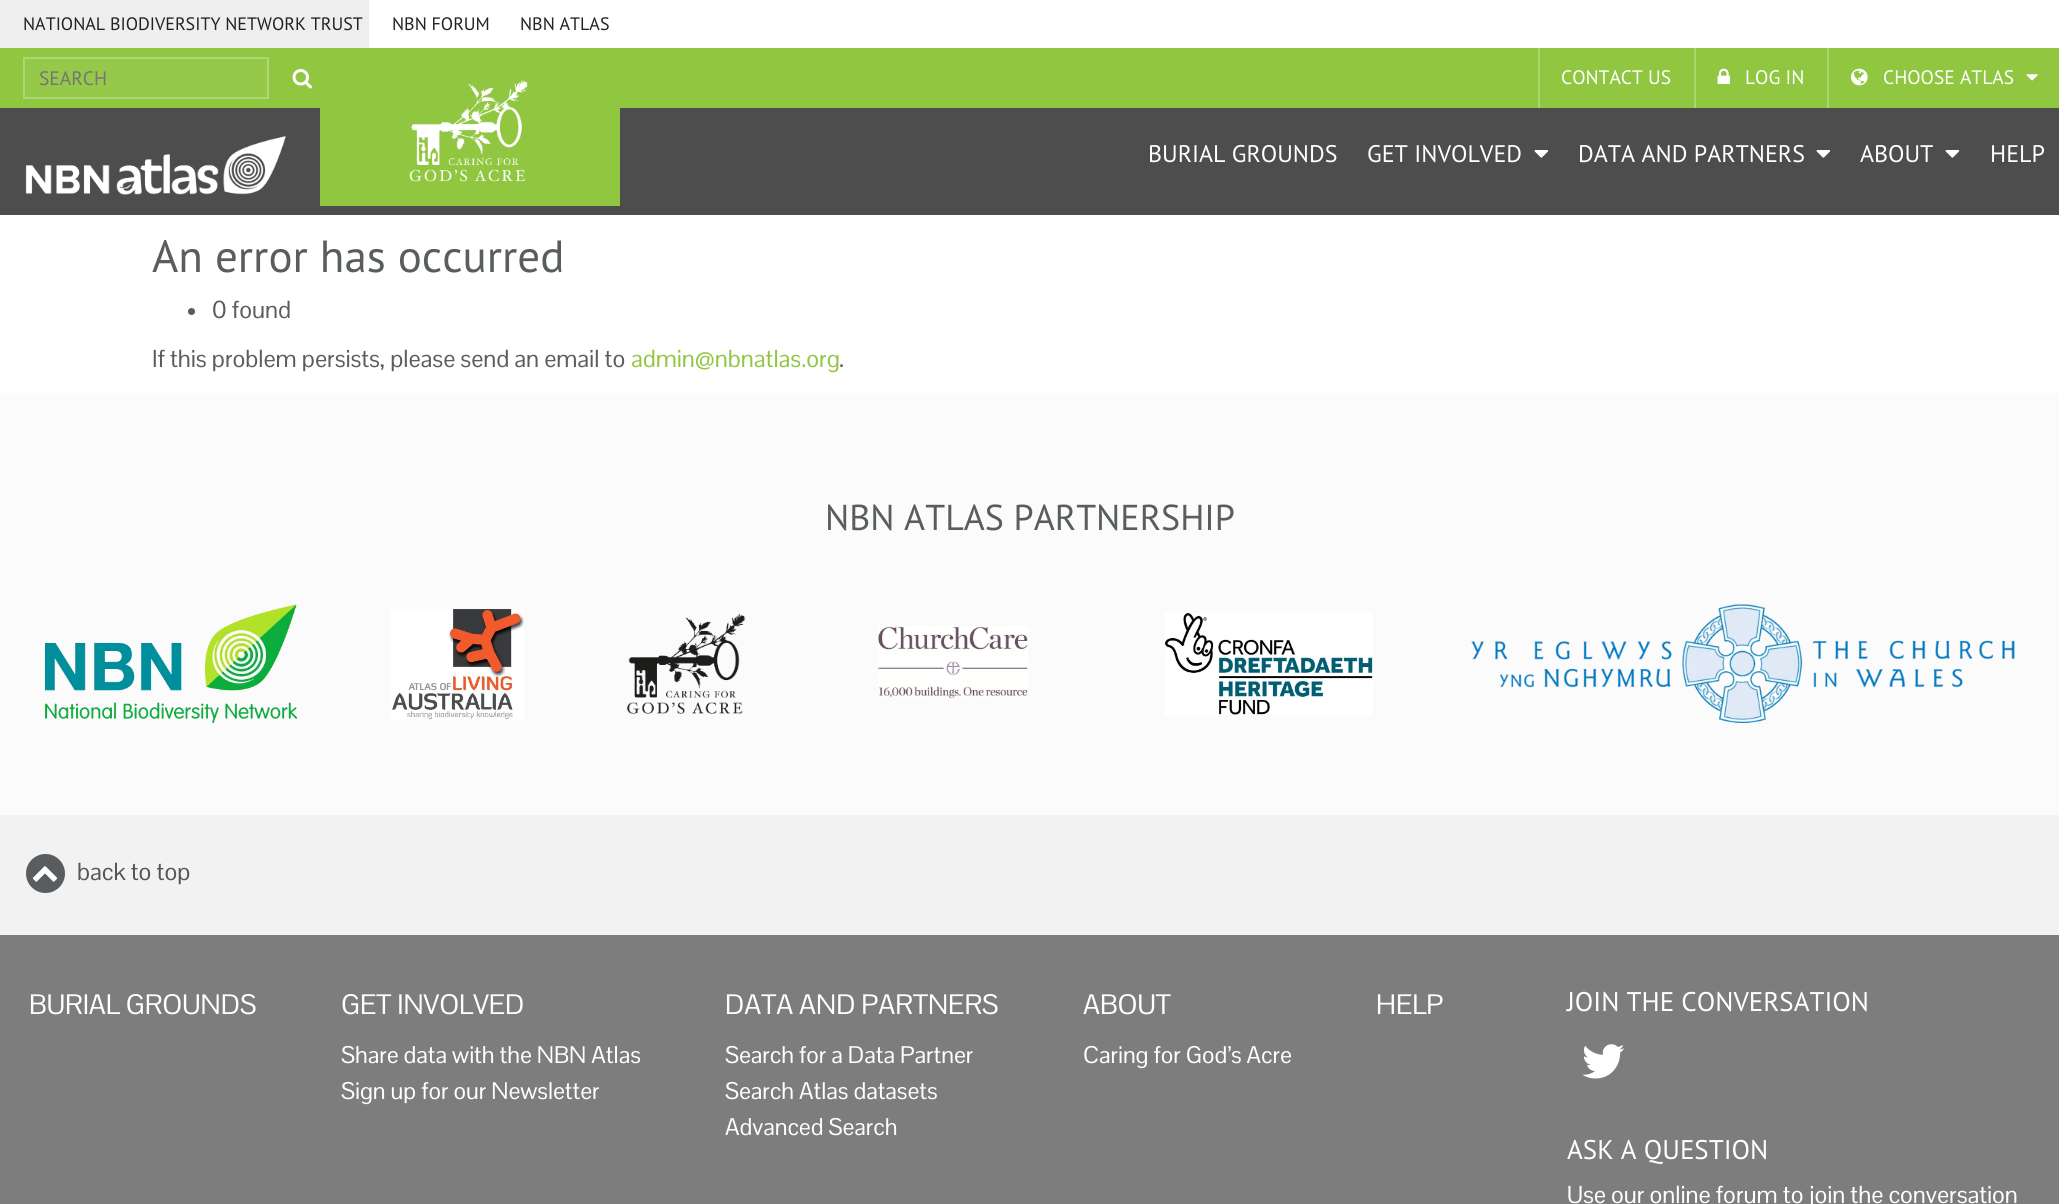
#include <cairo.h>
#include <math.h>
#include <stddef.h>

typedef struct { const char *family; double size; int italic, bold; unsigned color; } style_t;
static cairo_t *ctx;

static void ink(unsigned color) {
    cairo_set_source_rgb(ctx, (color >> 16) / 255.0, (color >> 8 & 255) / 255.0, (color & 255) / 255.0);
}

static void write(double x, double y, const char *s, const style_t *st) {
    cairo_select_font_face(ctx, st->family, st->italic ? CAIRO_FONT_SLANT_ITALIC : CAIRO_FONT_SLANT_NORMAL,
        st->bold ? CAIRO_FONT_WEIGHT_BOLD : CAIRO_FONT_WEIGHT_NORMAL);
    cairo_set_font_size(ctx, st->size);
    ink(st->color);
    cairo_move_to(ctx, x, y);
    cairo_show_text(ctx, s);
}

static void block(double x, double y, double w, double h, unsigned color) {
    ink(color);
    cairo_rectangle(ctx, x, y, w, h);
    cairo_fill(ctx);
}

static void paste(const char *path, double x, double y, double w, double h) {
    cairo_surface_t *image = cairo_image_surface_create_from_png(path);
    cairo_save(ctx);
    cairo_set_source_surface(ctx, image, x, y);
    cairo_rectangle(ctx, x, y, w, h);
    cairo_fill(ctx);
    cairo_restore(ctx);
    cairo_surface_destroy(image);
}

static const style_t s1 = {"PT Sans", 18, 0, 0, 0x222222};
static const style_t s2 = {"PT Sans", 19.5, 0, 0, 0x757575};
static const style_t s3 = {"PT Sans", 19.5, 0, 0, 0xffffff};
static const style_t s4 = {"PT Sans", 24, 0, 0, 0xffffff};
static const style_t s5 = {"PT Sans", 45, 0, 0, 0x595d5f};
static const style_t s6 = {"Pontano Sans", 24, 0, 0, 0x595d5f};
static const style_t s7 = {"Pontano Sans", 24, 0, 0, 0x90c640};
static const style_t s8 = {"PT Sans", 36, 0, 0, 0x595d5f};
static const style_t s9 = {"Pontano Sans", 24, 0, 0, 0x555555};
static const style_t s10 = {"Pontano Sans", 27.5, 0, 0, 0xffffff};
static const style_t s11 = {"Pontano Sans", 23.5, 0, 0, 0xffffff};
static const style_t s12 = {"PT Sans", 27, 0, 0, 0xffffff};
static const style_t s13 = {"Pontano Sans", 24, 0, 0, 0xffffff};

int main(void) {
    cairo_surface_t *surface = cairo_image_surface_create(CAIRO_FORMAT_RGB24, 2059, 1204);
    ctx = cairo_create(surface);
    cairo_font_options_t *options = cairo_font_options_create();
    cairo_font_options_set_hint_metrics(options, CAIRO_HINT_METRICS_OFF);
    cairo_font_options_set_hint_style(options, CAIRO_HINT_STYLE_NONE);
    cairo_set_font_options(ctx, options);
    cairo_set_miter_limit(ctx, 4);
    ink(0xffffff);
    cairo_paint(ctx);
    block(0, 0, 369, 48, 0xeeeeee);
    write(23, 30, "NATIONAL BIODIVERSITY NETWORK TRUST", &s1);
    write(392, 30, "NBN FORUM", &s1);
    write(520, 30, "NBN ATLAS", &s1);
    block(0, 48, 2059, 60, 0x90c640);
    ink(0x96c94a);
    cairo_rectangle(ctx, 24, 58, 244, 40);
    cairo_fill_preserve(ctx);
    ink(0xb0d777);
    cairo_stroke(ctx);
    write(39, 85, "SEARCH", &s2);
    paste("pic1.png", 292, 69, 20, 20);
    block(1538, 48, 2, 60, 0xacd470);
    write(1561, 84, "CONTACT US", &s3);
    block(1694, 48, 2, 60, 0xacd470);
    paste("pic2.png", 1717, 68, 14, 16);
    write(1745, 84, "LOG IN", &s3);
    block(1827, 48, 2, 60, 0xacd470);
    paste("pic3.png", 1851, 68, 17, 18);
    write(1883, 84, "CHOOSE ATLAS", &s3);
    paste("pic4.png", 2026, 74, 12, 7);
    block(0, 108, 2059, 107, 0x4d4d4d);
    paste("pic5.png", 25, 135, 261, 60);
    block(320, 108, 300, 98, 0x90c640);
    paste("pic6.png", 409, 80, 119, 102);
    write(1148, 162, "BURIAL GROUNDS", &s4);
    write(1367, 162, "GET INVOLVED", &s4);
    paste("pic7.png", 1534, 150, 15, 8);
    write(1578, 162, "DATA AND PARTNERS", &s4);
    paste("pic7.png", 1816, 150, 15, 8);
    write(1860, 162, "ABOUT", &s4);
    paste("pic7.png", 1945, 150, 15, 8);
    write(1990, 162, "HELP", &s4);
    write(152, 272, "An error has occurred", &s5);
    cairo_new_path(ctx);
    cairo_arc(ctx, 191.5, 311.5, 3.5, 0, 2 * M_PI);
    cairo_fill(ctx);
    write(212, 318, "0 found", &s6);
    write(152, 367, "If this problem persists, please send an email to", &s6);
    write(631, 367, "admin@nbnatlas.org", &s7);
    write(839, 367, ".", &s6);
    block(0, 393, 2059, 422, 0xfbfbfb);
    write(825, 530, "NBN ATLAS PARTNERSHIP", &s8);
    paste("pic8.png", 45, 604, 252, 119);
    paste("pic9.png", 391, 609, 133, 111);
    paste("pic10.png", 627, 613, 119, 101);
    paste("pic11.png", 878, 626, 150, 72);
    paste("pic12.png", 1165, 613, 208, 102);
    paste("pic13.png", 1471, 604, 544, 119);
    block(0, 815, 2059, 120, 0xf2f2f2);
    ink(0x595d5f);
    cairo_arc(ctx, 45.5, 873.5, 19.5, 0, 2 * M_PI);
    cairo_fill(ctx);
    write(77, 880, "back to top", &s9);
    paste("pic14.png", 32, 866, 26, 16);
    block(0, 935, 2059, 269, 0x7d7d7d);
    write(29, 1014, "BURIAL GROUNDS", &s10);
    write(341, 1014, "GET INVOLVED", &s10);
    write(341, 1063, "Share data with the NBN Atlas", &s11);
    write(341, 1099, "Sign up for our Newsletter", &s11);
    write(725, 1014, "DATA AND PARTNERS", &s10);
    write(725, 1063, "Search for a Data Partner", &s11);
    write(725, 1099, "Search Atlas datasets", &s11);
    write(725, 1135, "Advanced Search", &s11);
    write(1083, 1014, "ABOUT", &s10);
    write(1083, 1063, "Caring for God’s Acre", &s11);
    write(1376, 1014, "HELP", &s10);
    write(1567, 1011, "JOIN THE CONVERSATION", &s12);
    paste("pic15.png", 1582, 1044, 43, 35);
    write(1567, 1159, "ASK A QUESTION", &s12);
    write(1567, 1203, "Use our online forum to join the conversation", &s13);
    cairo_surface_write_to_png(surface, "screenshot.png");
    cairo_font_options_destroy(options);
    cairo_destroy(ctx);
    cairo_surface_destroy(surface);
    return 0;
}
